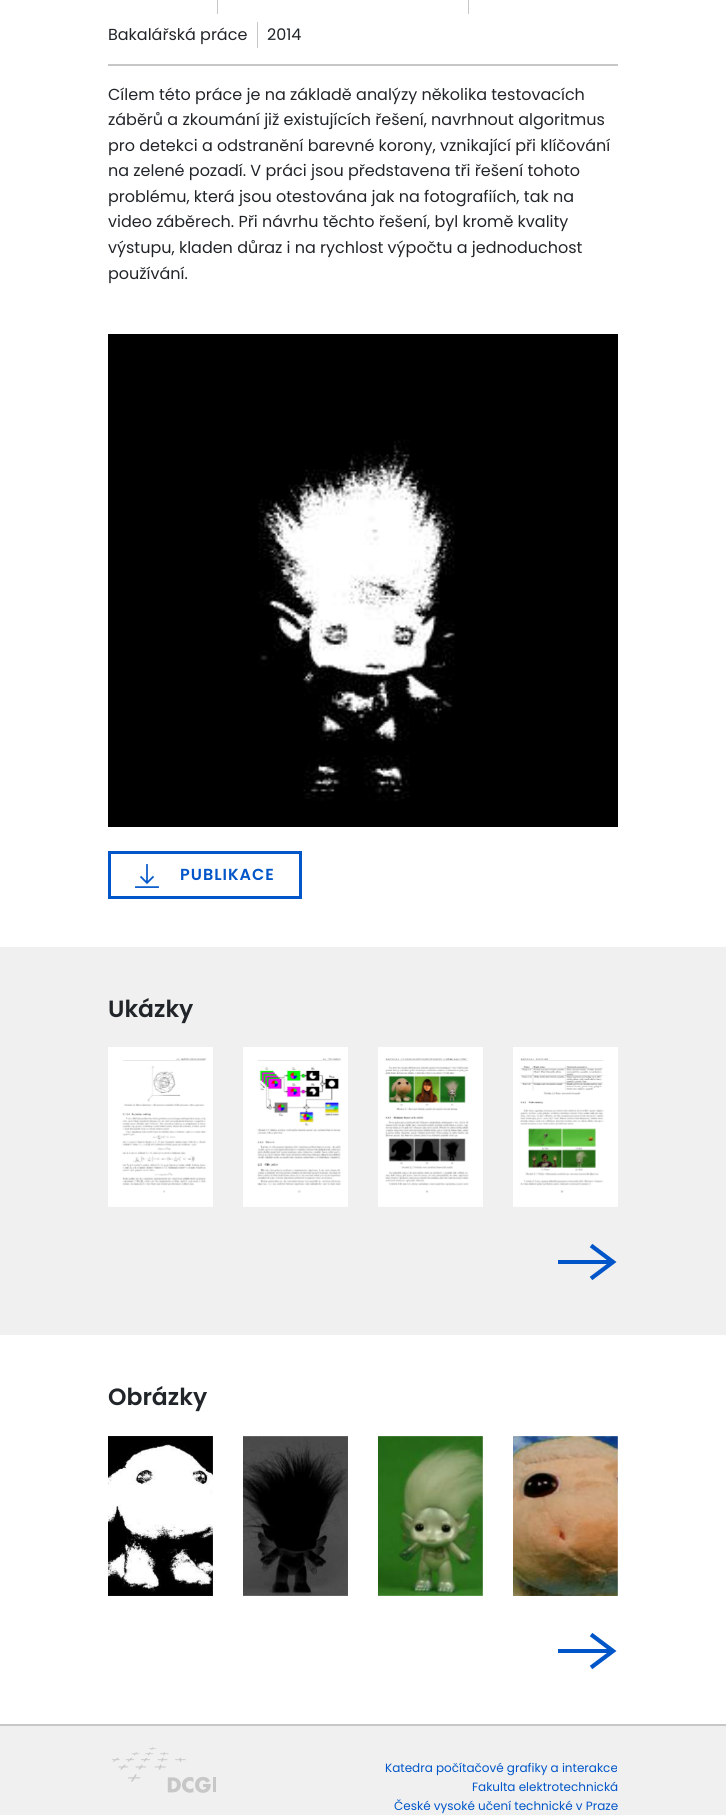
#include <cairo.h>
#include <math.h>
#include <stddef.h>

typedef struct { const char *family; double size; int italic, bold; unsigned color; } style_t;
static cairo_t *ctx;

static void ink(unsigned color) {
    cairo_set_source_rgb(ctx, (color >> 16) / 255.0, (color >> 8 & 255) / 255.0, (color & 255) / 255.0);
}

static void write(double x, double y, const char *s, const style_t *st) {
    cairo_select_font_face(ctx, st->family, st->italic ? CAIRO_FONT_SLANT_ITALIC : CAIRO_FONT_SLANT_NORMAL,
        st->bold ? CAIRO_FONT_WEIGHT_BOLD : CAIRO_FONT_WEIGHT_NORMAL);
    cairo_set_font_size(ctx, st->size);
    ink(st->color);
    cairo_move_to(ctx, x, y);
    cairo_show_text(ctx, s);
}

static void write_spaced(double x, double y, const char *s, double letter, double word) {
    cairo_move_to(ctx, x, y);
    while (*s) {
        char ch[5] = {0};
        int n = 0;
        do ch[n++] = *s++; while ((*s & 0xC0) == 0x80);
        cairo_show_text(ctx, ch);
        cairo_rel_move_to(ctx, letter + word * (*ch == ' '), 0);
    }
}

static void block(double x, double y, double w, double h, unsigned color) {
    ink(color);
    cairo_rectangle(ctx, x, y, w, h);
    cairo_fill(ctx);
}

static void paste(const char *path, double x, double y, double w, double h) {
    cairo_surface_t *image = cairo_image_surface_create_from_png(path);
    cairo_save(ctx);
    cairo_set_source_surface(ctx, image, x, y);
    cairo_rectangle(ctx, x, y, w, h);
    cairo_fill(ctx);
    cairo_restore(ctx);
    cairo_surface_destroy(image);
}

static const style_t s1 = {"Poppins", 16, 0, 0, 0x212529};
static const style_t s2 = {"Poppins SemiBold", 23.5, 0, 0, 0x212529};
static const style_t s3 = {"Poppins", 12, 0, 0, 0x0055c8};

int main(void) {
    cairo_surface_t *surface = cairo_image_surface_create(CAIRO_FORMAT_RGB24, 726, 1815);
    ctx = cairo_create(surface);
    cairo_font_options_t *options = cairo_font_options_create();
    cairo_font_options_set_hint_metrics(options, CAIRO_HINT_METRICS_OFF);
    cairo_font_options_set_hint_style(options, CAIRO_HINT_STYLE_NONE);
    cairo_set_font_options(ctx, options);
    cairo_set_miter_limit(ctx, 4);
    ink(0xffffff);
    cairo_paint(ctx);
    block(108, 64, 510, 2, 0xc7c7c7);
    block(217, 0, 1, 14, 0xc7c7c7);
    block(468, 0, 1, 14, 0xc7c7c7);
    block(257, 22, 1, 26, 0xc7c7c7);
    write(108, 40, "Bakalářská práce", &s1);
    write(267, 40, "2014", &s1);
    write(108, 100, "Cílem této práce je na základě analýzy několika testovacích", &s1);
    write(108, 125, "záběrů a zkoumání již existujících řešení, navrhnout algoritmus", &s1);
    write(108, 151, "pro detekci a odstranění barevné korony, vznikající při klíčování", &s1);
    write(108, 176, "na zelené pozadí. V práci jsou představena tři řešení tohoto", &s1);
    write(108, 202, "problému, která jsou otestována jak na fotografiích, tak na", &s1);
    write(108, 227, "video záběrech. Při návrhu těchto řešení, byl kromě kvality", &s1);
    write(108, 253, "výstupu, kladen důraz i na rychlost výpočtu a jednoduchost", &s1);
    write(108, 279, "používání.", &s1);
    paste("pic1.png", 108, 334, 510, 493);
    cairo_rectangle(ctx, 109.5, 852.5, 191, 45);
    ink(0x0055c8);
    cairo_set_line_width(ctx, 3);
    cairo_stroke(ctx);
    paste("pic2.png", 135, 864, 24, 24);
    cairo_select_font_face(ctx, "Poppins SemiBold", CAIRO_FONT_SLANT_NORMAL, CAIRO_FONT_WEIGHT_NORMAL);
    write_spaced(180, 880, "PUBLIKACE", 1, 0);
    block(0, 947, 726, 388, 0xf0f0f0);
    write(108, 1017, "Ukázky", &s2);
    paste("pic3.png", 108, 1047, 105, 160);
    paste("pic4.png", 243, 1047, 105, 160);
    paste("pic5.png", 378, 1047, 105, 160);
    paste("pic6.png", 513, 1047, 105, 160);
    cairo_new_path(ctx);
    cairo_move_to(ctx, 591, 1245.5);
    cairo_line_to(ctx, 613, 1262);
    cairo_line_to(ctx, 591, 1278.5);
    ink(0x0055c8);
    cairo_set_line_width(ctx, 4.2);
    cairo_stroke(ctx);
    block(558, 1260, 55, 4, 0x0055c8);
    write(108, 1405, "Obrázky", &s2);
    paste("pic7.png", 108, 1436, 105, 160);
    paste("pic8.png", 243, 1436, 105, 160);
    paste("pic9.png", 378, 1436, 105, 160);
    paste("pic10.png", 513, 1436, 105, 160);
    cairo_new_path(ctx);
    cairo_move_to(ctx, 591, 1634.5);
    cairo_line_to(ctx, 613, 1651);
    cairo_line_to(ctx, 591, 1667.5);
    ink(0x0055c8);
    cairo_stroke(ctx);
    block(558, 1649, 55, 4, 0x0055c8);
    block(0, 1726, 726, 89, 0xf0f0f0);
    block(0, 1724, 726, 2, 0xc7c7c7);
    paste("pic11.png", 112, 1747, 104, 46);
    write(385, 1772, "Katedra počítačové grafiky a interakce", &s3);
    write(472, 1791, "Fakulta elektrotechnická", &s3);
    write(394, 1810, "České vysoké učení technické v Praze", &s3);
    cairo_surface_write_to_png(surface, "screenshot.png");
    cairo_font_options_destroy(options);
    cairo_destroy(ctx);
    cairo_surface_destroy(surface);
    return 0;
}
